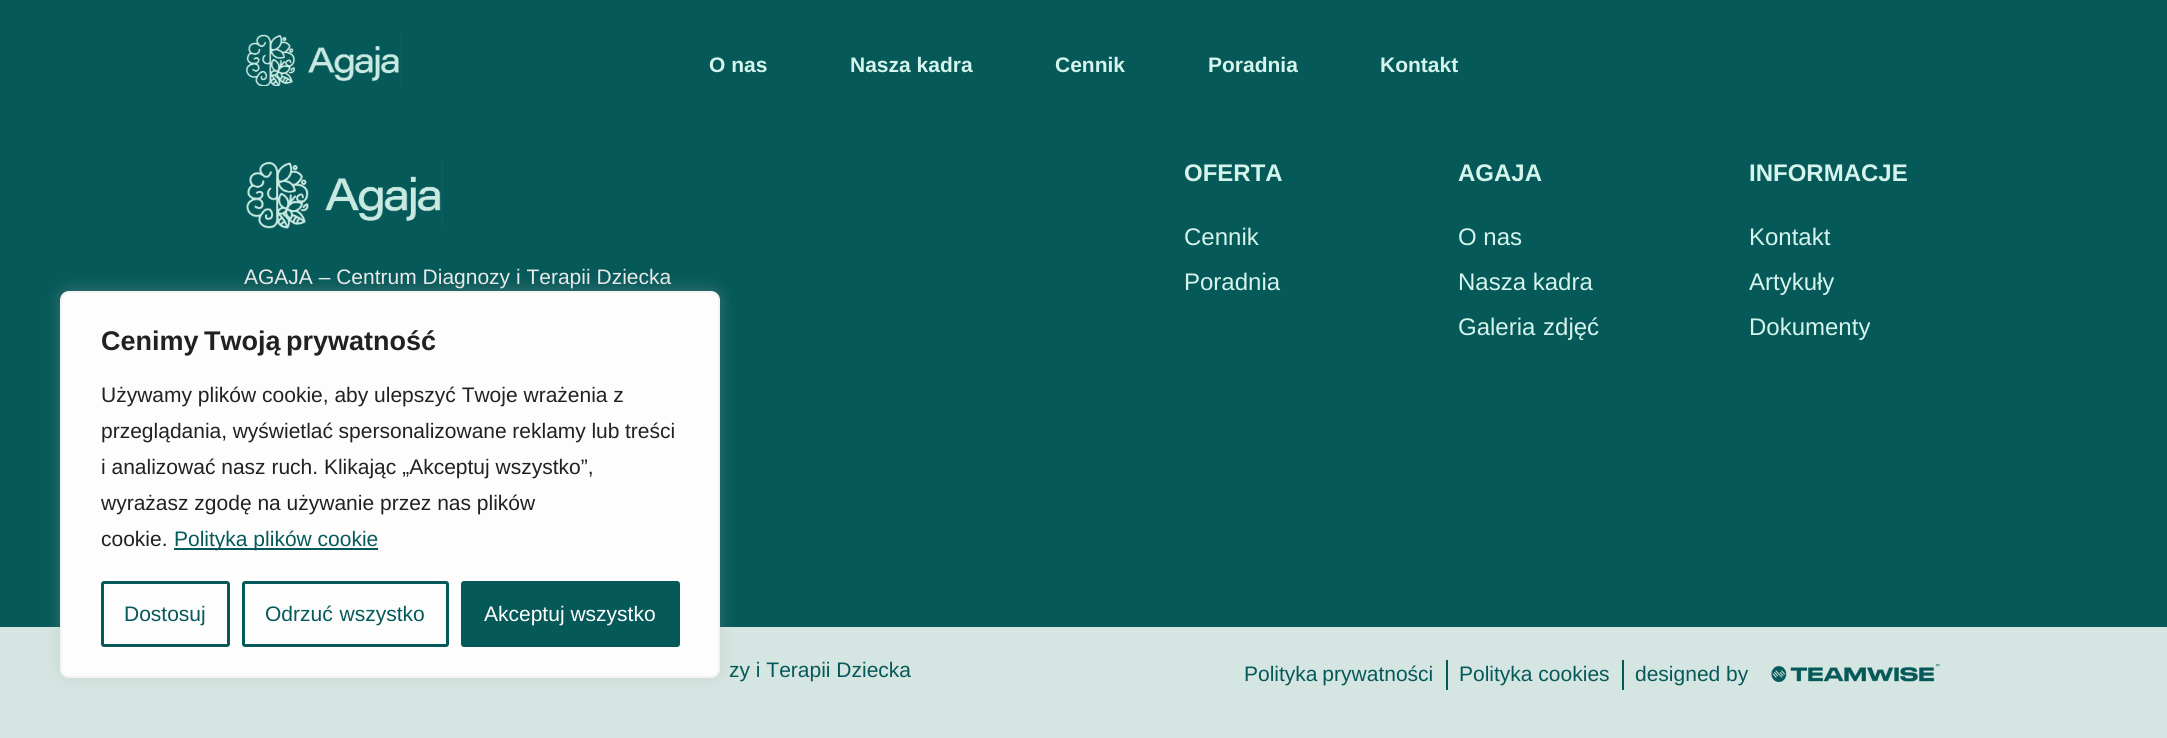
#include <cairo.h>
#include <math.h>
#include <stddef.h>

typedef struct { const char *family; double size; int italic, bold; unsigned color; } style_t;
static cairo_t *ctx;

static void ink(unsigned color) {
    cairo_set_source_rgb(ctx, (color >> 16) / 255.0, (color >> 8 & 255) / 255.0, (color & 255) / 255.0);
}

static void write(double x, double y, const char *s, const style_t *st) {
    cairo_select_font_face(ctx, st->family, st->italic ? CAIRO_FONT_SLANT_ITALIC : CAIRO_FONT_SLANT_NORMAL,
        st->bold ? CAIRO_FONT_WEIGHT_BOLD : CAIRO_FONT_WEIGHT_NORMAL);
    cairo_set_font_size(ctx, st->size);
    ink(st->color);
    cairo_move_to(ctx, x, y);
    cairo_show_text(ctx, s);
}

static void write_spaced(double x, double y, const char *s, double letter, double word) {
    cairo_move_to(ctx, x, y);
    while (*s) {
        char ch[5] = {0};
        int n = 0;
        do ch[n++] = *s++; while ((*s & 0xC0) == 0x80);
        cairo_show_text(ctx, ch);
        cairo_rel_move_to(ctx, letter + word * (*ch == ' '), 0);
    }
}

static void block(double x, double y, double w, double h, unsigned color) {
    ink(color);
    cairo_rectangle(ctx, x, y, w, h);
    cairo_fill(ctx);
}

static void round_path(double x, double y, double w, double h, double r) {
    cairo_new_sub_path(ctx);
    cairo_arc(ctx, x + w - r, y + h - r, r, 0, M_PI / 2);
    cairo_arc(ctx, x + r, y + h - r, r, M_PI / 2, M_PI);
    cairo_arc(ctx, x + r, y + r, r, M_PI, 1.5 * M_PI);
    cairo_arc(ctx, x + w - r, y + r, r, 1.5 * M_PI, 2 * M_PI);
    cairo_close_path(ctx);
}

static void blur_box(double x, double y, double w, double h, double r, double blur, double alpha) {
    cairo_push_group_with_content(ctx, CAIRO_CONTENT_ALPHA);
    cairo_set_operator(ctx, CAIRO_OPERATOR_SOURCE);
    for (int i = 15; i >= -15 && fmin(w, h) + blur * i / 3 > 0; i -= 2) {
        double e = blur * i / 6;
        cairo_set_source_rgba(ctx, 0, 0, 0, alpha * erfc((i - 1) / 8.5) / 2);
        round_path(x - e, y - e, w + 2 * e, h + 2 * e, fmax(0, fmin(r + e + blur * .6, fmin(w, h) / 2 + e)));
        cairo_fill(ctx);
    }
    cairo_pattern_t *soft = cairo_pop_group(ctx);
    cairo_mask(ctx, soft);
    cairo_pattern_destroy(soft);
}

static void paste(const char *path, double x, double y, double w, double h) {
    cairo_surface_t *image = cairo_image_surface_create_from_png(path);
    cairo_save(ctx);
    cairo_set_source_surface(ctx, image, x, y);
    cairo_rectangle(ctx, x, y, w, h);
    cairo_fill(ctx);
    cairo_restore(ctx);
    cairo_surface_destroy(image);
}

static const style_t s1 = {"Liberation Sans", 21, 0, 1, 0xd4f4ec};
static const style_t s2 = {"Liberation Sans", 21, 0, 0, 0xeaeaea};
static const style_t s3 = {"Liberation Sans", 24, 0, 1, 0xd4f4ec};
static const style_t s4 = {"Liberation Sans", 24, 0, 0, 0xd4f4ec};
static const style_t s5 = {"Liberation Sans", 21, 0, 0, 0x065959};
static const style_t s6 = {"Liberation Sans", 21, 0, 0, 0x212121};
static const style_t s7 = {"Liberation Sans", 21, 0, 0, 0xffffff};

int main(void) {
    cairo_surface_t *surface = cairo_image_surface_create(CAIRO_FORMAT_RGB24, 2167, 738);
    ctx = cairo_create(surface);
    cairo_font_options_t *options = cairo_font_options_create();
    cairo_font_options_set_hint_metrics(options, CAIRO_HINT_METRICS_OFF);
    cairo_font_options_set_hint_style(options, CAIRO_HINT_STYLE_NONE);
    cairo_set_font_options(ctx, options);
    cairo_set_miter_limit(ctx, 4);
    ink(0xd5e5e1);
    cairo_paint(ctx);
    block(0, 0, 2167, 627, 0x065959);
    paste("pic1.png", 245, 33, 156, 53);
    write(709, 72, "O nas", &s1);
    write(850, 72, "Nasza kadra", &s1);
    write(1055, 72, "Cennik", &s1);
    write(1208, 72, "Poradnia", &s1);
    write(1380, 72, "Kontakt", &s1);
    paste("pic2.png", 246, 160, 197, 70);
    write(244, 284, "AGAJA – Centrum Diagnozy i Terapii Dziecka", &s2);
    write(1184, 181, "OFERTA", &s3);
    write(1184, 245, "Cennik", &s4);
    write(1184, 290, "Poradnia", &s4);
    write(1458, 181, "AGAJA", &s3);
    write(1458, 245, "O nas", &s4);
    write(1458, 290, "Nasza kadra", &s4);
    write_spaced(1458, 335, "Galeria zdjęć", 0, 1);
    write(1749, 181, "INFORMACJE", &s3);
    write(1749, 245, "Kontakt", &s4);
    write(1749, 290, "Artykuły", &s4);
    write(1749, 335, "Dokumenty", &s4);
    write(729, 677, "zy i Terapii Dziecka", &s5);
    write_spaced(1244, 681, "Polityka prywatności", 0, -1);
    block(1446, 660, 2, 30, 0x065959);
    write(1459, 681, "Polityka cookies", &s5);
    block(1622, 660, 2, 30, 0x065959);
    write(1635, 681, "designed by", &s5);
    paste("pic3.png", 1771, 664, 169, 18);
    ink(0xacabab);
    blur_box(60, 290, 660, 387, 9, 7.5, 0.3);
    ink(0xfdfdfd);
    round_path(61, 292, 658, 385, 8);
    cairo_fill_preserve(ctx);
    ink(0xf4f4f4);
    cairo_stroke(ctx);
    cairo_select_font_face(ctx, "Liberation Sans", CAIRO_FONT_SLANT_NORMAL, CAIRO_FONT_WEIGHT_BOLD);
    cairo_set_font_size(ctx, 27);
    ink(0x212121);
    write_spaced(101, 350, "Cenimy Twoją prywatność", 0, -2);
    write(101, 402, "Używamy plików cookie, aby ulepszyć Twoje wrażenia z", &s6);
    write_spaced(101, 438, "przeglądania, wyświetlać spersonalizowane reklamy lub treści", 0, -0.25);
    write(101, 474, "i analizować nasz ruch. Klikając „Akceptuj wszystko”,", &s6);
    write(101, 510, "wyrażasz zgodę na używanie przez nas plików", &s6);
    write(101, 546, "cookie.", &s6);
    block(174, 548, 204, 2, 0x065959);
    write(174, 546, "Polityka plików cookie", &s5);
    round_path(102.5, 582.5, 126, 63, 1.5);
    cairo_set_line_width(ctx, 3);
    cairo_stroke(ctx);
    write(124, 621, "Dostosuj", &s5);
    round_path(243.5, 582.5, 204, 63, 1.5);
    cairo_stroke(ctx);
    write_spaced(265, 621, "Odrzuć wszystko", 0, 1);
    round_path(462.5, 582.5, 216, 63, 1.5);
    cairo_fill_preserve(ctx);
    cairo_stroke(ctx);
    write(484, 621, "Akceptuj wszystko", &s7);
    cairo_surface_write_to_png(surface, "screenshot.png");
    cairo_font_options_destroy(options);
    cairo_destroy(ctx);
    cairo_surface_destroy(surface);
    return 0;
}
